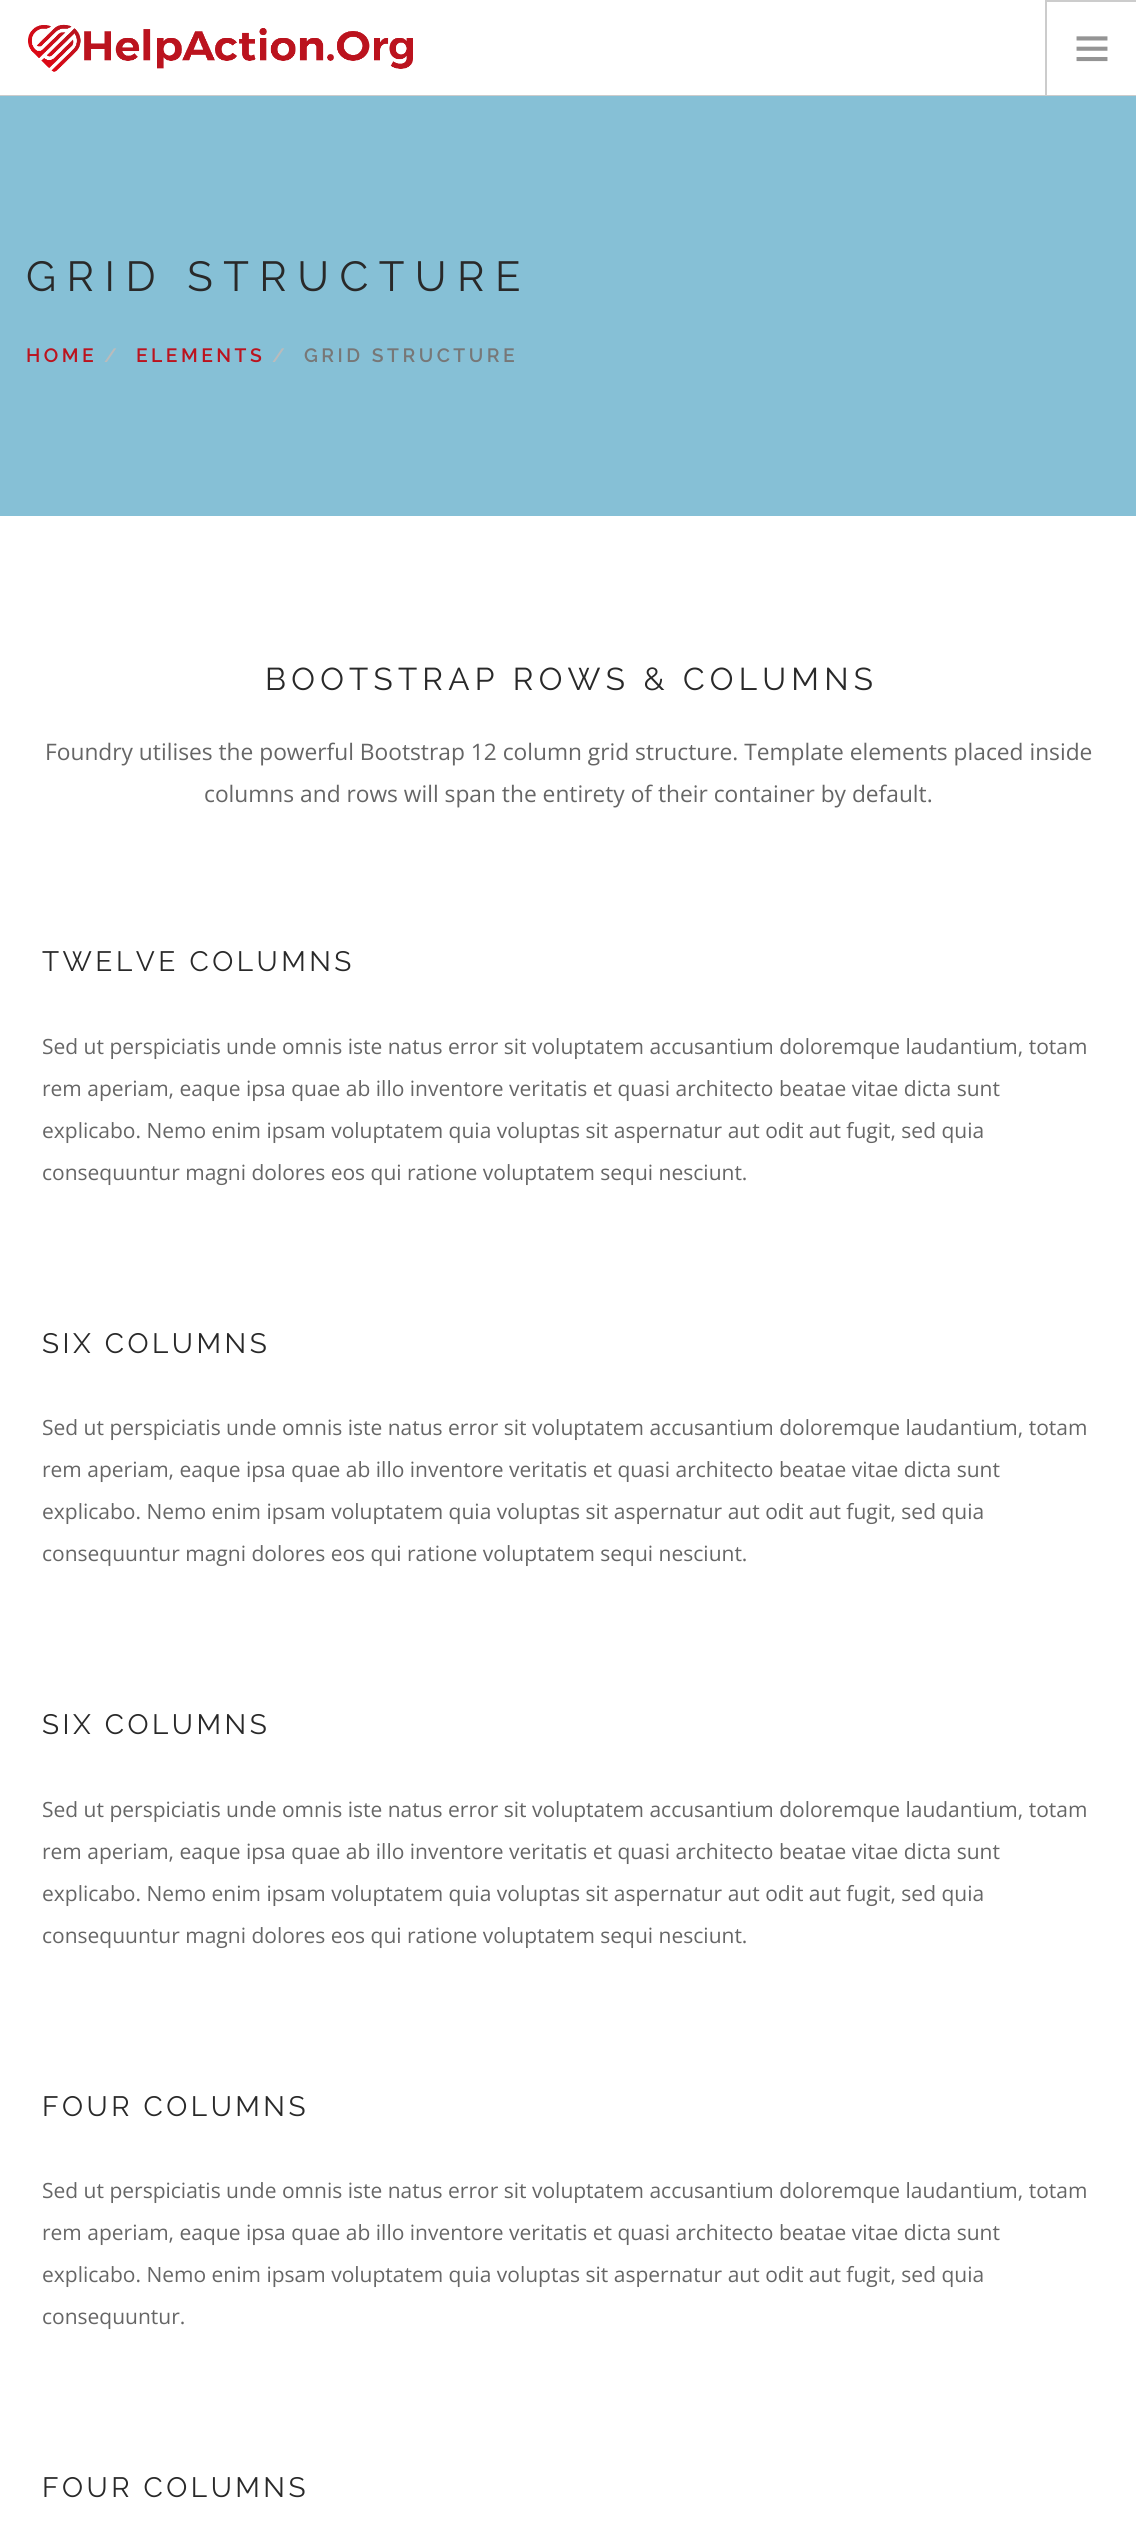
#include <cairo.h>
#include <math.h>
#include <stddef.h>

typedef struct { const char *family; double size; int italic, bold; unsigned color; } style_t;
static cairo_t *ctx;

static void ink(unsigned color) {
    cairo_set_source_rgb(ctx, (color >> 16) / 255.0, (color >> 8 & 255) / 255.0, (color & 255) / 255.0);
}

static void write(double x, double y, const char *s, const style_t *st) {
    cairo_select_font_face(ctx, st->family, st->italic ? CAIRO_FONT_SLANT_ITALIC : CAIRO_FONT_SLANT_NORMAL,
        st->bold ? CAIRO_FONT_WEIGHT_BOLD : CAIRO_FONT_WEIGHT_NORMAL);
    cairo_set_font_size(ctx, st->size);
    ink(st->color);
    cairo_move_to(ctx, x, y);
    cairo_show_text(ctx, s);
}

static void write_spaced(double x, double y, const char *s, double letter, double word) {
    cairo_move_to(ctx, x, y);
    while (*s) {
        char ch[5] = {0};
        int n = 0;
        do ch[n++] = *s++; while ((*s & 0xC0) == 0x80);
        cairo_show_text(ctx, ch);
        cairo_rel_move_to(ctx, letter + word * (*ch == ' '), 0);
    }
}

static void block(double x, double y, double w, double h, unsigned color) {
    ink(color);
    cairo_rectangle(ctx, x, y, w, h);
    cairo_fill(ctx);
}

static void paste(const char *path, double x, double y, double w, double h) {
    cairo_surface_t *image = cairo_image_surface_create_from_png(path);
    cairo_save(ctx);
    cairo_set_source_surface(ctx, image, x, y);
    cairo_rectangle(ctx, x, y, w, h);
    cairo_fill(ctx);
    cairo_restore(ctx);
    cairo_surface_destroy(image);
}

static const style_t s1 = {"Open Sans", 22.75, 0, 0, 0x666666};
static const style_t s2 = {"Open Sans", 21, 0, 0, 0x666666};

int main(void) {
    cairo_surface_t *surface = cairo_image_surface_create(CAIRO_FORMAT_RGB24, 1136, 2521);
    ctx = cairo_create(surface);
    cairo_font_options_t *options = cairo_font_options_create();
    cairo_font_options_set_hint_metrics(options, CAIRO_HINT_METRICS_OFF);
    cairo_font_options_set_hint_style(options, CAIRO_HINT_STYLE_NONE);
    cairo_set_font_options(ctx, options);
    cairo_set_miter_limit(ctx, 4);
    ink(0xffffff);
    cairo_paint(ctx);
    block(0, 95, 1136, 1, 0xcccccc);
    paste("pic1.png", 28, 24, 385, 48);
    block(1045, 0, 91, 2, 0xcccccc);
    block(1045, 0, 2, 95, 0xcccccc);
    paste("pic2.png", 1076, 36, 32, 26);
    block(0, 96, 1136, 420, 0x86c0d6);
    cairo_select_font_face(ctx, "Raleway", CAIRO_FONT_SLANT_NORMAL, CAIRO_FONT_WEIGHT_NORMAL);
    cairo_set_font_size(ctx, 42);
    ink(0x292929);
    write_spaced(26, 291, "GRID STRUCTURE", 10.5, 0);
    cairo_select_font_face(ctx, "Raleway SemiBold", CAIRO_FONT_SLANT_NORMAL, CAIRO_FONT_WEIGHT_NORMAL);
    cairo_set_font_size(ctx, 19.25);
    ink(0xbb131e);
    write_spaced(26, 362, "HOME", 3.5, 0);
    ink(0xbbbbbb);
    write_spaced(104, 362, "/", 3.5, 0);
    ink(0xbb131e);
    write_spaced(136, 362, "ELEMENTS", 3.5, 0);
    ink(0xbbbbbb);
    write_spaced(272, 362, "/", 3.5, 0);
    ink(0x777777);
    write_spaced(304, 362, "GRID STRUCTURE", 3.5, 0);
    cairo_select_font_face(ctx, "Raleway", CAIRO_FONT_SLANT_NORMAL, CAIRO_FONT_WEIGHT_NORMAL);
    cairo_set_font_size(ctx, 31.5);
    ink(0x292929);
    write_spaced(265, 690, "BOOTSTRAP ROWS & COLUMNS", 5.25, 0);
    write(45, 760, "Foundry utilises the powerful Bootstrap 12 column grid structure. Template elements placed inside", &s1);
    write(204, 802, "columns and rows will span the entirety of their container by default.", &s1);
    cairo_select_font_face(ctx, "Raleway", CAIRO_FONT_SLANT_NORMAL, CAIRO_FONT_WEIGHT_NORMAL);
    cairo_set_font_size(ctx, 28);
    ink(0x292929);
    write_spaced(42, 971, "TWELVE COLUMNS", 3.5, 0);
    write(42, 1054, "Sed ut perspiciatis unde omnis iste natus error sit voluptatem accusantium doloremque laudantium, totam", &s2);
    write(42, 1096, "rem aperiam, eaque ipsa quae ab illo inventore veritatis et quasi architecto beatae vitae dicta sunt", &s2);
    write(42, 1138, "explicabo. Nemo enim ipsam voluptatem quia voluptas sit aspernatur aut odit aut fugit, sed quia", &s2);
    write(42, 1180, "consequuntur magni dolores eos qui ratione voluptatem sequi nesciunt.", &s2);
    cairo_select_font_face(ctx, "Raleway", CAIRO_FONT_SLANT_NORMAL, CAIRO_FONT_WEIGHT_NORMAL);
    cairo_set_font_size(ctx, 28);
    ink(0x292929);
    write_spaced(42, 1353, "SIX COLUMNS", 3.5, 0);
    write(42, 1435, "Sed ut perspiciatis unde omnis iste natus error sit voluptatem accusantium doloremque laudantium, totam", &s2);
    write(42, 1477, "rem aperiam, eaque ipsa quae ab illo inventore veritatis et quasi architecto beatae vitae dicta sunt", &s2);
    write(42, 1519, "explicabo. Nemo enim ipsam voluptatem quia voluptas sit aspernatur aut odit aut fugit, sed quia", &s2);
    write(42, 1561, "consequuntur magni dolores eos qui ratione voluptatem sequi nesciunt.", &s2);
    cairo_select_font_face(ctx, "Raleway", CAIRO_FONT_SLANT_NORMAL, CAIRO_FONT_WEIGHT_NORMAL);
    cairo_set_font_size(ctx, 28);
    ink(0x292929);
    write_spaced(42, 1734, "SIX COLUMNS", 3.5, 0);
    write(42, 1817, "Sed ut perspiciatis unde omnis iste natus error sit voluptatem accusantium doloremque laudantium, totam", &s2);
    write(42, 1859, "rem aperiam, eaque ipsa quae ab illo inventore veritatis et quasi architecto beatae vitae dicta sunt", &s2);
    write(42, 1901, "explicabo. Nemo enim ipsam voluptatem quia voluptas sit aspernatur aut odit aut fugit, sed quia", &s2);
    write(42, 1943, "consequuntur magni dolores eos qui ratione voluptatem sequi nesciunt.", &s2);
    cairo_select_font_face(ctx, "Raleway", CAIRO_FONT_SLANT_NORMAL, CAIRO_FONT_WEIGHT_NORMAL);
    cairo_set_font_size(ctx, 28);
    ink(0x292929);
    write_spaced(42, 2116, "FOUR COLUMNS", 3.5, 0);
    write(42, 2198, "Sed ut perspiciatis unde omnis iste natus error sit voluptatem accusantium doloremque laudantium, totam", &s2);
    write(42, 2240, "rem aperiam, eaque ipsa quae ab illo inventore veritatis et quasi architecto beatae vitae dicta sunt", &s2);
    write(42, 2282, "explicabo. Nemo enim ipsam voluptatem quia voluptas sit aspernatur aut odit aut fugit, sed quia", &s2);
    write(42, 2324, "consequuntur.", &s2);
    cairo_select_font_face(ctx, "Raleway", CAIRO_FONT_SLANT_NORMAL, CAIRO_FONT_WEIGHT_NORMAL);
    cairo_set_font_size(ctx, 28);
    ink(0x292929);
    write_spaced(42, 2497, "FOUR COLUMNS", 3.5, 0);
    cairo_surface_write_to_png(surface, "screenshot.png");
    cairo_font_options_destroy(options);
    cairo_destroy(ctx);
    cairo_surface_destroy(surface);
    return 0;
}
